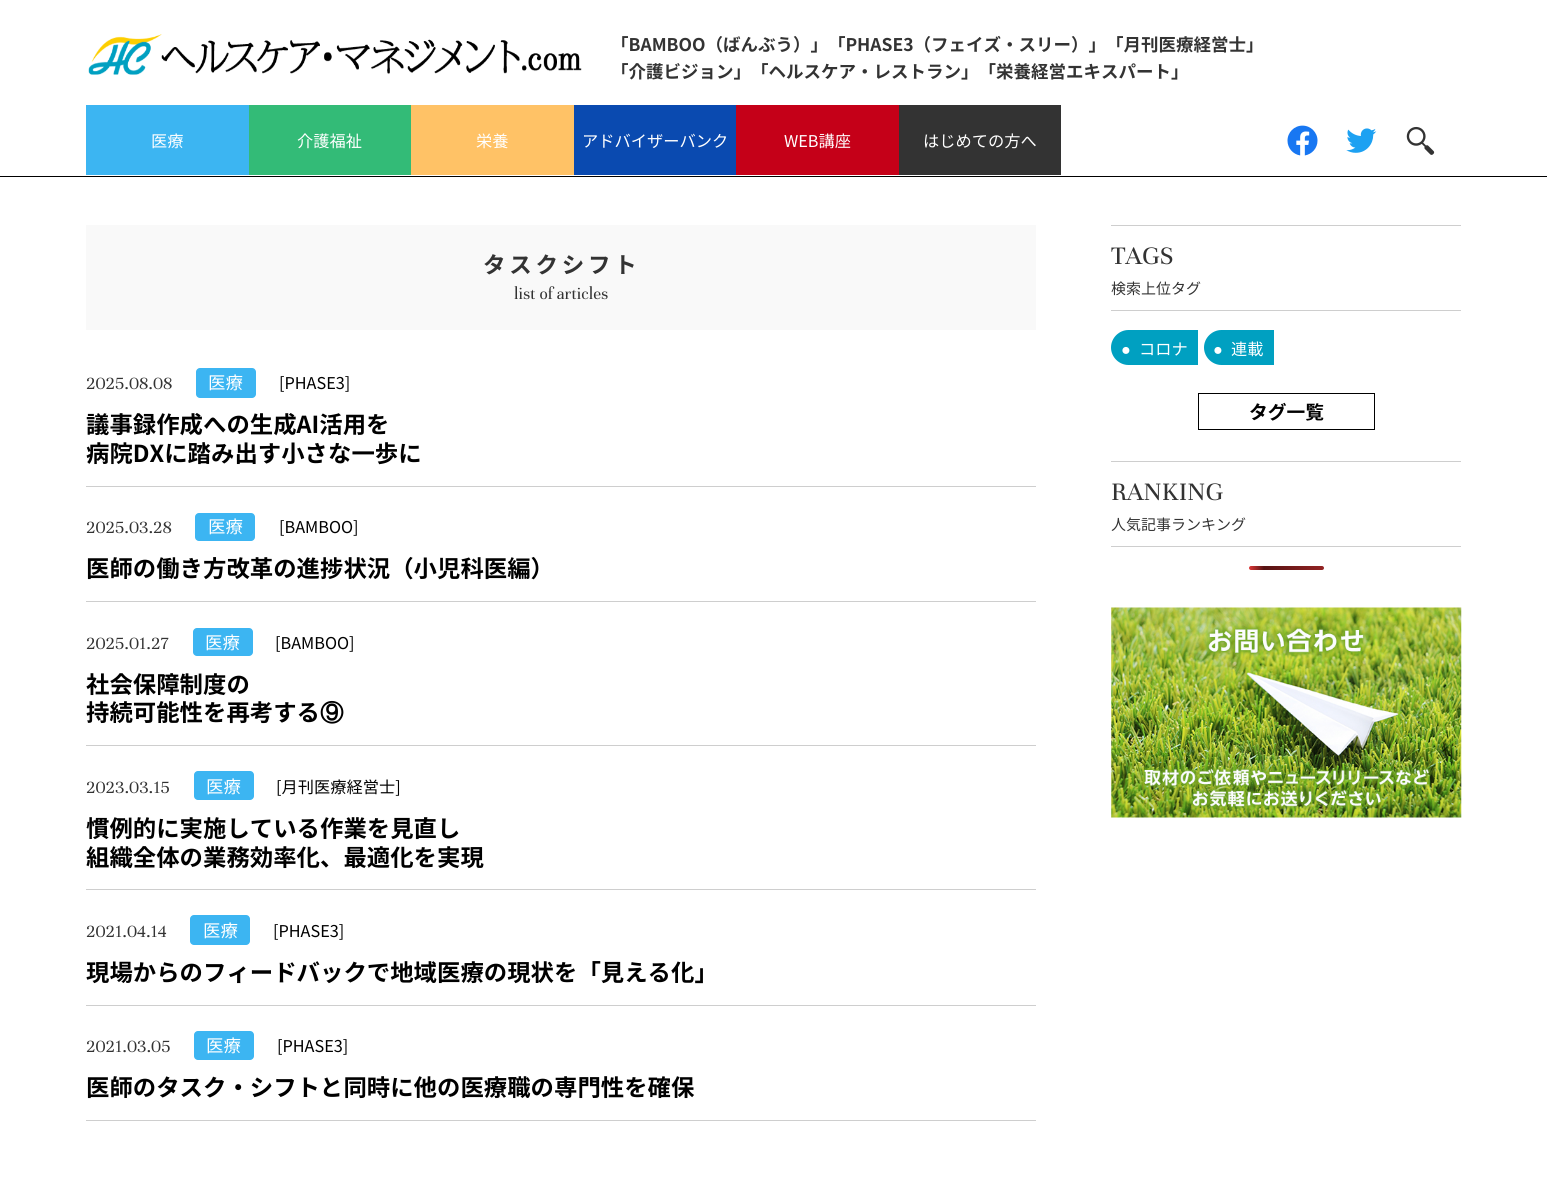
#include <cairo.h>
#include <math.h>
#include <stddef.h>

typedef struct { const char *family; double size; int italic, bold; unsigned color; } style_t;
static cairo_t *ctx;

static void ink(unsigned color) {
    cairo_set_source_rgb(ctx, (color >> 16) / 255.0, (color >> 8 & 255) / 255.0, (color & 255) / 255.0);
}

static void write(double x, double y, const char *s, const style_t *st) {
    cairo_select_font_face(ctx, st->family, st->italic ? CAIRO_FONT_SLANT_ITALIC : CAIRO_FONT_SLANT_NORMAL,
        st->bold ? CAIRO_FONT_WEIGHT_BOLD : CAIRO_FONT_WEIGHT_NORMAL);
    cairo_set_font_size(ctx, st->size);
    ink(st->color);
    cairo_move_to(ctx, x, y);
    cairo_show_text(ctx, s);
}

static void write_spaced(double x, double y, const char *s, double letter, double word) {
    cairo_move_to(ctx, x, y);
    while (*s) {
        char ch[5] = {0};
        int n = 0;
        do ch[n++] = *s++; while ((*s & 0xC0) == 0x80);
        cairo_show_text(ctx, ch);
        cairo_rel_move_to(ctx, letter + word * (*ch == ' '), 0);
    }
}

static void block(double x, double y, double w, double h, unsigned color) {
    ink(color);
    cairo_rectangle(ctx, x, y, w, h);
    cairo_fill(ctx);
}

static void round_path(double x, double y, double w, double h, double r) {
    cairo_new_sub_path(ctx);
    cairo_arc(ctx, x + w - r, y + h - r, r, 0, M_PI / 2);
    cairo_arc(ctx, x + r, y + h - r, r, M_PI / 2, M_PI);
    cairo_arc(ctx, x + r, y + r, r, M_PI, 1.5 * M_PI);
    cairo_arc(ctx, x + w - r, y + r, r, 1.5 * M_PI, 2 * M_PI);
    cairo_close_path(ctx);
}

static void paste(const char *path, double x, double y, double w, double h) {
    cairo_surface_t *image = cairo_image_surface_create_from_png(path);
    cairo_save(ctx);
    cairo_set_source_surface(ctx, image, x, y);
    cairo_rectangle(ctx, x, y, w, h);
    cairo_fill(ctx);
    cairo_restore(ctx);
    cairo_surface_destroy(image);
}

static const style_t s1 = {"Noto Sans JP", 17.5, 0, 1, 0x333333};
static const style_t s2 = {"Noto Sans JP", 16.25, 0, 0, 0xffffff};
static const style_t s3 = {"Unna", 17.5, 0, 0, 0x333333};
static const style_t s4 = {"Unna", 18.75, 0, 0, 0x333333};
static const style_t s5 = {"Noto Sans JP", 17.5, 0, 0, 0xffffff};
static const style_t s6 = {"Noto Sans JP", 16.25, 0, 0, 0x000000};
static const style_t s7 = {"Noto Sans JP", 23.4, 0, 1, 0x000000};
static const style_t s8 = {"WenQuanYi Zen Hei", 23.4, 0, 1, 0x000000};
static const style_t s9 = {"Unna", 27.5, 0, 0, 0x333333};
static const style_t s10 = {"Noto Sans JP", 15, 0, 0, 0x333333};
static const style_t s11 = {"Liberation Sans", 16.25, 0, 0, 0xffffff};
static const style_t s12 = {"Noto Sans JP", 18.75, 0, 1, 0x000000};

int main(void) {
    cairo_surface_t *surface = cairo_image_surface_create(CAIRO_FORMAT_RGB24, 1547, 1177);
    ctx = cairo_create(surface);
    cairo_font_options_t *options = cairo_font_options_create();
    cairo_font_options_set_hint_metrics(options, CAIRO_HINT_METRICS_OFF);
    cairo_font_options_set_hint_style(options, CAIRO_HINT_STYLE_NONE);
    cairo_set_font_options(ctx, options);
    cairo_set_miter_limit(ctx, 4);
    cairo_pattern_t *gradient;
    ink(0xffffff);
    cairo_paint(ctx);
    block(0, 176, 1547, 1, 0x000000);
    paste("pic1.png", 88, 34, 494, 41);
    write(611, 51, "「BAMBOO（ばんぶう）」「PHASE3（フェイズ・スリー）」「月刊医療経営士」", &s1);
    write(611, 78, "「介護ビジョン」「ヘルスケア・レストラン」「栄養経営エキスパート」", &s1);
    block(86, 105, 163, 70, 0x3cb5f2);
    write(151, 147, "医療", &s2);
    block(249, 105, 162, 70, 0x33bb77);
    write(297, 147, "介護福祉", &s2);
    block(411, 105, 163, 70, 0xffc266);
    write(476, 147, "栄養", &s2);
    block(574, 105, 162, 70, 0x0a4ab0);
    write(582, 147, "アドバイザーバンク", &s2);
    block(736, 105, 163, 70, 0xc50018);
    write(784, 147, "WEB講座", &s2);
    block(899, 105, 162, 70, 0x333333);
    write(923, 147, "はじめての方へ", &s2);
    paste("pic2.png", 1287, 125, 31, 31);
    paste("pic3.png", 1346, 128, 31, 25);
    paste("pic4.png", 1406, 126, 29, 29);
    block(86, 225, 950, 105, 0xf9f9f9);
    cairo_select_font_face(ctx, "Noto Sans JP", CAIRO_FONT_SLANT_NORMAL, CAIRO_FONT_WEIGHT_BOLD);
    cairo_set_font_size(ctx, 22.5);
    ink(0x333333);
    write_spaced(483, 273, "タスクシフト", 3.75, 0);
    write(514, 299, "list of articles", &s3);
    block(86, 486, 950, 1, 0xcecece);
    write(86, 389, "2025.08.08", &s4);
    ink(0x3cb5f2);
    round_path(196, 368, 60, 30, 4);
    cairo_fill(ctx);
    write(208, 389, "医療", &s5);
    write(279, 389, "[PHASE3]", &s6);
    write(86, 433, "議事録作成への生成AI活用を", &s7);
    write(86, 462, "病院DXに踏み出す小さな一歩に", &s7);
    block(86, 601, 950, 1, 0xcecece);
    write(86, 533, "2025.03.28", &s4);
    ink(0x3cb5f2);
    round_path(195, 513, 60, 28, 4);
    cairo_fill(ctx);
    write(208, 533, "医療", &s5);
    write(279, 533, "[BAMBOO]", &s6);
    write(86, 577, "医師の働き方改革の進捗状況（小児科医編）", &s7);
    block(86, 745, 950, 1, 0xcecece);
    write(86, 649, "2025.01.27", &s4);
    ink(0x3cb5f2);
    round_path(193, 628, 60, 28, 4);
    cairo_fill(ctx);
    write(205, 649, "医療", &s5);
    write(275, 649, "[BAMBOO]", &s6);
    write(86, 693, "社会保障制度の", &s7);
    write(86, 721, "持続可能性を再考する", &s7);
    write(320, 721, "⑨", &s8);
    block(86, 889, 950, 1, 0xcecece);
    write(86, 793, "2023.03.15", &s4);
    ink(0x3cb5f2);
    round_path(194, 771, 60, 29, 4);
    cairo_fill(ctx);
    write(206, 793, "医療", &s5);
    write(276, 793, "[月刊医療経営士]", &s6);
    write(86, 837, "慣例的に実施している作業を見直し", &s7);
    write(86, 866, "組織全体の業務効率化、最適化を実現", &s7);
    block(86, 1005, 950, 1, 0xcecece);
    write(86, 937, "2021.04.14", &s4);
    ink(0x3cb5f2);
    round_path(190, 915, 60, 30, 4);
    cairo_fill(ctx);
    write(203, 937, "医療", &s5);
    write(273, 937, "[PHASE3]", &s6);
    write(86, 981, "現場からのフィードバックで地域医療の現状を「見える化」", &s7);
    block(86, 1120, 950, 1, 0xcecece);
    write(86, 1052, "2021.03.05", &s4);
    ink(0x3cb5f2);
    round_path(194, 1031, 60, 29, 4);
    cairo_fill(ctx);
    write(206, 1052, "医療", &s5);
    write(277, 1052, "[PHASE3]", &s6);
    write(86, 1096, "医師のタスク・シフトと同時に他の医療職の専門性を確保", &s7);
    block(1111, 225, 350, 1, 0xcecece);
    write(1111, 264, "TAGS", &s9);
    block(1111, 310, 350, 1, 0xcecece);
    write(1111, 294, "検索上位タグ", &s10);
    ink(0x00a0c1);
    cairo_new_path(ctx);
    cairo_move_to(ctx, 1128.5, 330);
    cairo_line_to(ctx, 1198, 330);
    cairo_line_to(ctx, 1198, 365);
    cairo_line_to(ctx, 1128.5, 365);
    cairo_curve_to(ctx, 1119, 365, 1111, 357, 1111, 347.5);
    cairo_curve_to(ctx, 1111, 338, 1119, 330, 1128.5, 330);
    cairo_close_path(ctx);
    cairo_fill(ctx);
    write(1121, 355, "●", &s11);
    write(1139, 355, "コロナ", &s2);
    ink(0x00a0c1);
    cairo_new_path(ctx);
    cairo_move_to(ctx, 1221.5, 330);
    cairo_line_to(ctx, 1274, 330);
    cairo_line_to(ctx, 1274, 365);
    cairo_line_to(ctx, 1221.5, 365);
    cairo_curve_to(ctx, 1212, 365, 1204, 357, 1204, 347.5);
    cairo_curve_to(ctx, 1204, 338, 1212, 330, 1221.5, 330);
    cairo_close_path(ctx);
    cairo_fill(ctx);
    write(1213, 355, "●", &s11);
    write(1231, 355, "連載", &s2);
    cairo_rectangle(ctx, 1198.5, 393.5, 176, 36);
    ink(0x000000);
    cairo_set_line_width(ctx, 1);
    cairo_stroke(ctx);
    write(1249, 419, "タグ一覧", &s12);
    block(1111, 461, 350, 1, 0xcecece);
    write(1111, 500, "RANKING", &s9);
    block(1111, 546, 350, 1, 0xcecece);
    write(1111, 530, "人気記事ランキング", &s10);
    gradient = cairo_pattern_create_linear(1249, 568, 1399, 568);
    cairo_pattern_add_color_stop_rgba(gradient, 0, 0.867, 0.216, 0.216, 1);
    cairo_pattern_add_color_stop_rgba(gradient, 0.1, 0.341, 0.075, 0.075, 1);
    cairo_pattern_add_color_stop_rgba(gradient, 1, 0.867, 0.216, 0.216, 1);
    cairo_set_source(ctx, gradient);
    cairo_pattern_destroy(gradient);
    round_path(1249, 566, 75, 4, 2);
    cairo_fill(ctx);
    paste("pic5.png", 1111, 607, 351, 211);
    cairo_surface_write_to_png(surface, "screenshot.png");
    cairo_font_options_destroy(options);
    cairo_destroy(ctx);
    cairo_surface_destroy(surface);
    return 0;
}
